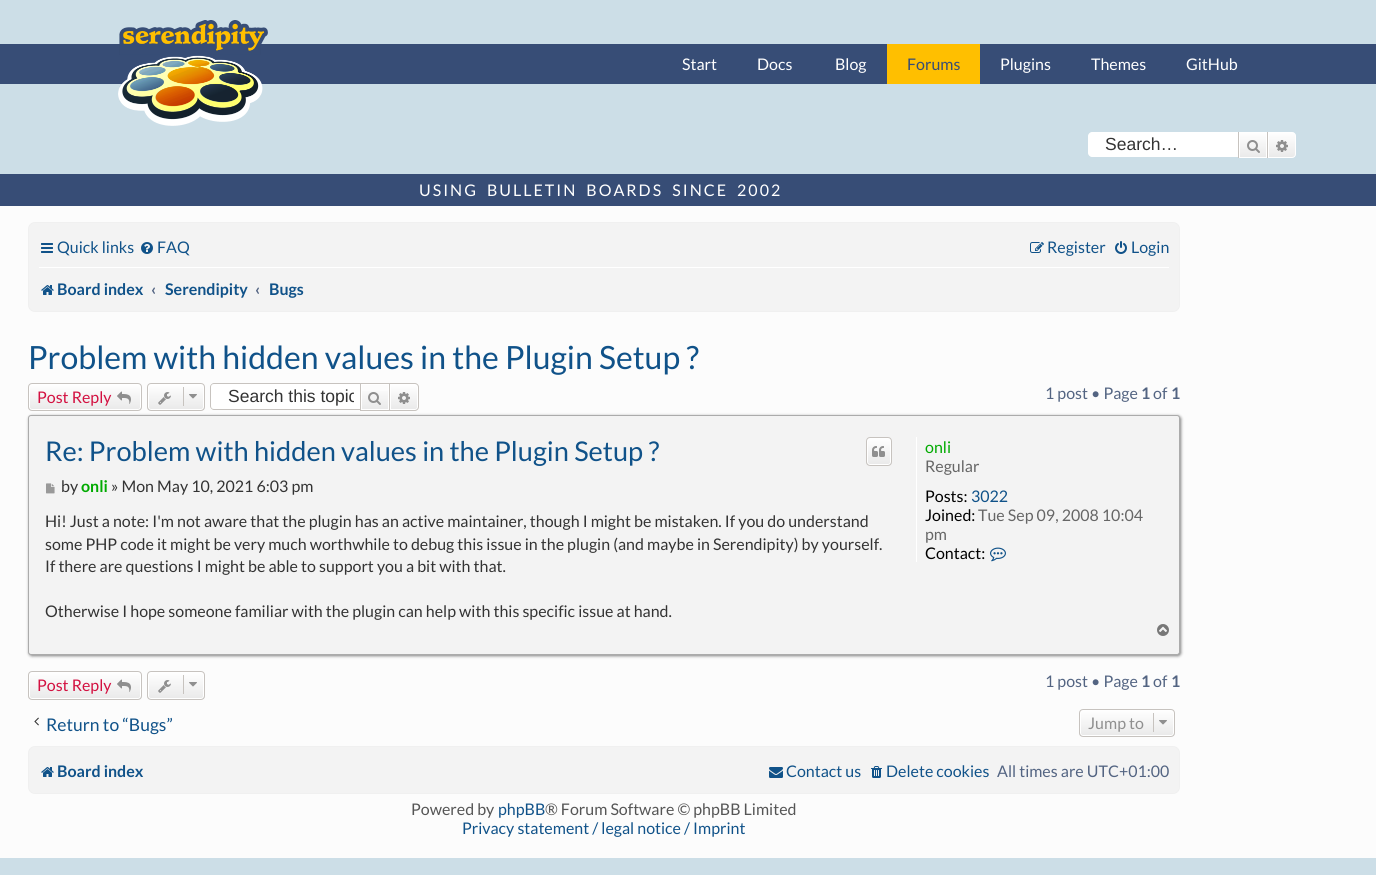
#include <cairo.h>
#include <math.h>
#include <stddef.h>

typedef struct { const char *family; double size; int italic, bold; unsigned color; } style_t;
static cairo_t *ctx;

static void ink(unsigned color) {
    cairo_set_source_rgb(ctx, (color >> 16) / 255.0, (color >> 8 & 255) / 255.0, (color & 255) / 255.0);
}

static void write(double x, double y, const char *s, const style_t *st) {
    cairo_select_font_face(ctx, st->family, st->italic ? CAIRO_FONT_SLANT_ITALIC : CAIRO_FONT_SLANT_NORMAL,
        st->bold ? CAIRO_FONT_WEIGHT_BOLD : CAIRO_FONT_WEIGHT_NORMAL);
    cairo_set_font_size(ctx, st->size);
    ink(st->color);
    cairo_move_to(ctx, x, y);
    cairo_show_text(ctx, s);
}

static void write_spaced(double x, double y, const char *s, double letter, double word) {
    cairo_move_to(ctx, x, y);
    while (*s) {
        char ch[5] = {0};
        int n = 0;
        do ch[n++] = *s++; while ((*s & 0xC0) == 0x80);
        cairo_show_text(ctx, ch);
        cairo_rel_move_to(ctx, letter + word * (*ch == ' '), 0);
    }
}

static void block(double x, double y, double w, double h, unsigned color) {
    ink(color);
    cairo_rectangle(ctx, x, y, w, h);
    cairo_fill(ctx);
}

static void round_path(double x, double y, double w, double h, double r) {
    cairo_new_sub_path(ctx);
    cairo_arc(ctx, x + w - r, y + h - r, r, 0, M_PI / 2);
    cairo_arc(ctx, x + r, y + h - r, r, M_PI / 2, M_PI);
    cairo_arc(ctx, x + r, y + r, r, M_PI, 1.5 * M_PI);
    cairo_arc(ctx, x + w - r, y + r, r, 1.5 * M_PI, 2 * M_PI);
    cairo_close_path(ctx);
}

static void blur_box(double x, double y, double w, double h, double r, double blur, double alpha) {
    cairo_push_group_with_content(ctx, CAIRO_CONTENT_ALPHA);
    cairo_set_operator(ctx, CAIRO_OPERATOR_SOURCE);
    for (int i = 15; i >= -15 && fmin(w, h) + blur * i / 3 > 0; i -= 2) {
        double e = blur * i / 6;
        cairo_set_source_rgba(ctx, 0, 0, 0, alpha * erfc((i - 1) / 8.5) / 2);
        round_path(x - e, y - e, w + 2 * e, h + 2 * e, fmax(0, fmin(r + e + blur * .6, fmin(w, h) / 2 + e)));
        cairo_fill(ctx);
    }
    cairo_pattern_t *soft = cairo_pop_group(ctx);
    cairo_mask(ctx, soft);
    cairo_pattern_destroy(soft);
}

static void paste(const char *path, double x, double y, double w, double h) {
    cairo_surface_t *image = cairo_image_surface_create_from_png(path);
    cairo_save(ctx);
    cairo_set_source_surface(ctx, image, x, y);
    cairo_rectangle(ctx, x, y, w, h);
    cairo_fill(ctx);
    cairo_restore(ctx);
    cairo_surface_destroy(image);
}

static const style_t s1 = {"Lato", 16, 0, 0, 0xffffff};
static const style_t s2 = {"Lato", 16, 0, 0, 0x374d76};
static const style_t s3 = {"Liberation Sans", 17.5, 0, 0, 0x333333};
static const style_t s4 = {"Lato", 16, 0, 0, 0x105289};
static const style_t s5 = {"Lato", 16, 0, 1, 0x105289};
static const style_t s6 = {"Lato", 16, 0, 1, 0x536482};
static const style_t s7 = {"Lato", 32, 0, 0, 0x105289};
static const style_t s8 = {"Lato", 16, 0, 0, 0xd31141};
static const style_t s9 = {"Lato", 16, 0, 0, 0x536482};
static const style_t s10 = {"Lato", 27.2, 0, 0, 0x105289};
static const style_t s11 = {"Lato", 16, 0, 0, 0x333333};
static const style_t s12 = {"Lato", 16, 0, 1, 0x00aa00};
static const style_t s13 = {"Lato", 16, 0, 0, 0x00aa00};
static const style_t s14 = {"Lato", 16, 0, 0, 0x666666};
static const style_t s15 = {"Lato", 16, 0, 0, 0x000000};
static const style_t s16 = {"Lato", 17.5, 0, 0, 0x105289};
static const style_t s17 = {"Lato", 16, 0, 0, 0x8f8f8f};
static const style_t s18 = {"Lato", 16, 0, 0, 0x555555};

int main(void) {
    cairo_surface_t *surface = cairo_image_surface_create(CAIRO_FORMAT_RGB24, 1376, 875);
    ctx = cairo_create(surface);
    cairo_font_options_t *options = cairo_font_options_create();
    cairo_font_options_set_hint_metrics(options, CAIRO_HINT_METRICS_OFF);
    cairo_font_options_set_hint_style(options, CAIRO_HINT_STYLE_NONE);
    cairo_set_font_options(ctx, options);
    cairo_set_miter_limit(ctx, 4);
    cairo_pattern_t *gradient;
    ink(0xccdee7);
    cairo_paint(ctx);
    block(0, 44, 1376, 40, 0x374d76);
    paste("pic1.png", 118, 20, 150, 106);
    write(682, 70, "Start", &s1);
    write(757, 70, "Docs", &s1);
    write(835, 70, "Blog", &s1);
    block(887, 44, 93, 40, 0xffbf00);
    write(907, 70, "Forums", &s2);
    write(1000, 70, "Plugins", &s1);
    write(1091, 70, "Themes", &s1);
    write(1186, 70, "GitHub", &s1);
    cairo_new_path(ctx);
    cairo_move_to(ctx, 1092, 132);
    cairo_line_to(ctx, 1238, 132);
    cairo_line_to(ctx, 1238, 157);
    cairo_line_to(ctx, 1092, 157);
    cairo_curve_to(ctx, 1090, 157, 1088, 155, 1088, 153);
    cairo_line_to(ctx, 1088, 136);
    cairo_curve_to(ctx, 1088, 134, 1090, 132, 1092, 132);
    cairo_close_path(ctx);
    cairo_fill(ctx);
    write(1105, 150, "Search…", &s3);
    gradient = cairo_pattern_create_linear(1253, 132, 1253, 158);
    cairo_pattern_add_color_stop_rgba(gradient, 0, 1, 1, 1, 1);
    cairo_pattern_add_color_stop_rgba(gradient, 1, 0.914, 0.914, 0.914, 1);
    cairo_set_source(ctx, gradient);
    cairo_pattern_destroy(gradient);
    cairo_rectangle(ctx, 1240, 133, 26, 24);
    cairo_fill(ctx);
    cairo_rectangle(ctx, 1239.5, 132.5, 27, 25);
    ink(0xffffff);
    cairo_set_line_width(ctx, 1);
    cairo_stroke(ctx);
    block(1267, 132, 1, 26, 0xc7c3bf);
    block(1238, 132, 1, 26, 0xc7c3bf);
    paste("pic2.png", 1247, 140, 13, 13);
    gradient = cairo_pattern_create_linear(1282, 132, 1282, 158);
    cairo_pattern_add_color_stop_rgba(gradient, 0, 1, 1, 1, 1);
    cairo_pattern_add_color_stop_rgba(gradient, 1, 0.914, 0.914, 0.914, 1);
    cairo_set_source(ctx, gradient);
    cairo_pattern_destroy(gradient);
    cairo_new_path(ctx);
    cairo_move_to(ctx, 1268.5, 132.5);
    cairo_line_to(ctx, 1292, 132.5);
    cairo_curve_to(ctx, 1294, 132.5, 1295.5, 134, 1295.5, 136);
    cairo_line_to(ctx, 1295.5, 154);
    cairo_curve_to(ctx, 1295.5, 156, 1294, 157.5, 1292, 157.5);
    cairo_line_to(ctx, 1268.5, 157.5);
    cairo_close_path(ctx);
    cairo_fill_preserve(ctx);
    ink(0xffffff);
    cairo_stroke(ctx);
    paste("pic3.png", 1276, 140, 12, 12);
    block(0, 174, 1376, 32, 0x374d76);
    cairo_select_font_face(ctx, "Lato", CAIRO_FONT_SLANT_NORMAL, CAIRO_FONT_WEIGHT_NORMAL);
    cairo_set_font_size(ctx, 16);
    ink(0xffffff);
    write_spaced(419, 196, "USING BULLETIN BOARDS SINCE 2002", 2, 4);
    block(0, 206, 1376, 652, 0xfcfcfc);
    ink(0xf3f3f3);
    round_path(28.5, 222.5, 1151, 89, 6.5);
    cairo_fill_preserve(ctx);
    ink(0xf0f0f0);
    cairo_stroke(ctx);
    paste("pic4.png", 41, 243, 12, 10);
    write(57, 253, "Quick links", &s4);
    paste("pic5.png", 141, 242, 12, 12);
    write(157, 253, "FAQ", &s4);
    paste("pic6.png", 1030, 242, 14, 11);
    write(1047, 253, "Register", &s4);
    paste("pic7.png", 1115, 241, 12, 13);
    write(1131, 253, "Login", &s4);
    block(39, 267, 1130, 1, 0xffffff);
    paste("pic8.png", 41, 285, 13, 10);
    write(57, 295, "Board index", &s5);
    write(151, 295, "‹", &s6);
    write(165, 295, "Serendipity", &s5);
    write(255, 295, "‹", &s6);
    write(269, 295, "Bugs", &s5);
    write(28, 369, "Problem with hidden values in the Plugin Setup ?", &s7);
    cairo_save(ctx);
    round_path(28, 383, 114, 28, 4);
    cairo_clip(ctx);
    gradient = cairo_pattern_create_linear(85, 384, 85, 410);
    cairo_pattern_add_color_stop_rgba(gradient, 0, 1, 1, 1, 1);
    cairo_pattern_add_color_stop_rgba(gradient, 1, 0.914, 0.914, 0.914, 1);
    cairo_set_source(ctx, gradient);
    cairo_pattern_destroy(gradient);
    cairo_rectangle(ctx, 28, 384, 114, 26);
    cairo_fill(ctx);
    cairo_restore(ctx);
    round_path(29.5, 384.5, 111, 25, 2.5);
    ink(0xffffff);
    cairo_stroke(ctx);
    round_path(28.5, 383.5, 113, 27, 3.5);
    ink(0xc7c3bf);
    cairo_stroke(ctx);
    write(37, 403, "Post Reply", &s8);
    paste("pic9.png", 117, 391, 14, 13);
    cairo_save(ctx);
    round_path(147, 383, 58, 28, 4);
    cairo_clip(ctx);
    gradient = cairo_pattern_create_linear(176, 384, 176, 410);
    cairo_pattern_add_color_stop_rgba(gradient, 0, 1, 1, 1, 1);
    cairo_pattern_add_color_stop_rgba(gradient, 1, 0.914, 0.914, 0.914, 1);
    cairo_set_source(ctx, gradient);
    cairo_pattern_destroy(gradient);
    cairo_rectangle(ctx, 147, 384, 58, 26);
    cairo_fill(ctx);
    cairo_restore(ctx);
    round_path(148.5, 384.5, 55, 25, 2.5);
    ink(0xffffff);
    cairo_stroke(ctx);
    round_path(147.5, 383.5, 57, 27, 3.5);
    ink(0xc7c3bf);
    cairo_stroke(ctx);
    paste("pic10.png", 158, 392, 13, 13);
    block(183, 387, 1, 19, 0xc7c3bf);
    paste("pic11.png", 189, 394, 8, 5);
    ink(0xffffff);
    cairo_new_path(ctx);
    cairo_move_to(ctx, 214, 384);
    cairo_line_to(ctx, 360, 384);
    cairo_line_to(ctx, 360, 409);
    cairo_line_to(ctx, 214, 409);
    cairo_curve_to(ctx, 212.5, 409, 211, 407.5, 211, 406);
    cairo_line_to(ctx, 211, 387);
    cairo_curve_to(ctx, 211, 385.5, 212.5, 384, 214, 384);
    cairo_close_path(ctx);
    cairo_fill(ctx);
    ink(0xc7c3bf);
    cairo_set_fill_rule(ctx, CAIRO_FILL_RULE_EVEN_ODD);
    cairo_new_path(ctx);
    cairo_move_to(ctx, 214, 383);
    cairo_line_to(ctx, 360, 383);
    cairo_line_to(ctx, 360, 410);
    cairo_line_to(ctx, 214, 410);
    cairo_curve_to(ctx, 212, 410, 210, 408, 210, 406);
    cairo_line_to(ctx, 210, 387);
    cairo_curve_to(ctx, 210, 385, 212, 383, 214, 383);
    cairo_close_path(ctx);
    cairo_move_to(ctx, 214, 384);
    cairo_line_to(ctx, 360, 384);
    cairo_line_to(ctx, 360, 409);
    cairo_line_to(ctx, 214, 409);
    cairo_curve_to(ctx, 212, 409, 211, 408, 211, 406);
    cairo_line_to(ctx, 211, 387);
    cairo_curve_to(ctx, 211, 385, 212, 384, 214, 384);
    cairo_close_path(ctx);
    cairo_fill(ctx);
    cairo_save(ctx);
    cairo_set_fill_rule(ctx, CAIRO_FILL_RULE_WINDING);
    cairo_rectangle(ctx, 228, 386, 126, 21);
    cairo_clip(ctx);
    write(228, 402, "Search this topic", &s3);
    cairo_restore(ctx);
    gradient = cairo_pattern_create_linear(375, 384, 375, 410);
    cairo_pattern_add_color_stop_rgba(gradient, 0, 1, 1, 1, 1);
    cairo_pattern_add_color_stop_rgba(gradient, 1, 0.914, 0.914, 0.914, 1);
    cairo_set_source(ctx, gradient);
    cairo_pattern_destroy(gradient);
    cairo_rectangle(ctx, 362, 391, 26, 18);
    cairo_fill(ctx);
    cairo_rectangle(ctx, 361.5, 384.5, 27, 25);
    ink(0xffffff);
    cairo_stroke(ctx);
    cairo_rectangle(ctx, 360.5, 383.5, 29, 27);
    ink(0xc7c3bf);
    cairo_stroke(ctx);
    paste("pic2.png", 368, 392, 13, 13);
    gradient = cairo_pattern_create_linear(404, 384, 404, 410);
    cairo_pattern_add_color_stop_rgba(gradient, 0, 1, 1, 1, 1);
    cairo_pattern_add_color_stop_rgba(gradient, 1, 0.914, 0.914, 0.914, 1);
    cairo_set_source(ctx, gradient);
    cairo_pattern_destroy(gradient);
    cairo_new_path(ctx);
    cairo_move_to(ctx, 390.5, 384.5);
    cairo_line_to(ctx, 415, 384.5);
    cairo_curve_to(ctx, 416.5, 384.5, 417.5, 385.5, 417.5, 387);
    cairo_line_to(ctx, 417.5, 407);
    cairo_curve_to(ctx, 417.5, 408.5, 416.5, 409.5, 415, 409.5);
    cairo_line_to(ctx, 390.5, 409.5);
    cairo_close_path(ctx);
    cairo_fill_preserve(ctx);
    ink(0xffffff);
    cairo_stroke(ctx);
    ink(0xc7c3bf);
    cairo_new_path(ctx);
    cairo_move_to(ctx, 390, 383);
    cairo_line_to(ctx, 415, 383);
    cairo_curve_to(ctx, 417, 383, 419, 385, 419, 387);
    cairo_line_to(ctx, 419, 407);
    cairo_curve_to(ctx, 419, 409, 417, 411, 415, 411);
    cairo_line_to(ctx, 390, 411);
    cairo_close_path(ctx);
    cairo_move_to(ctx, 390, 384);
    cairo_line_to(ctx, 415, 384);
    cairo_curve_to(ctx, 416.5, 384, 418, 385.5, 418, 387);
    cairo_line_to(ctx, 418, 407);
    cairo_curve_to(ctx, 418, 408.5, 416.5, 410, 415, 410);
    cairo_line_to(ctx, 390, 410);
    cairo_close_path(ctx);
    cairo_fill(ctx);
    paste("pic3.png", 398, 392, 12, 12);
    write(1045, 399, "1 post • Page", &s9);
    write(1141, 399, "1", &s6);
    write(1153, 399, "of", &s9);
    write(1171, 399, "1", &s6);
    ink(0x808080);
    blur_box(29, 416, 1152, 240, 3, 1.5, 1);
    ink(0xf3f3f3);
    round_path(28.5, 415.5, 1151, 239, 2.5);
    cairo_fill_preserve(ctx);
    ink(0xababab);
    cairo_stroke(ctx);
    write(45, 461, "Re: Problem with hidden values in the Plugin Setup ?", &s10);
    cairo_save(ctx);
    cairo_set_fill_rule(ctx, CAIRO_FILL_RULE_WINDING);
    round_path(866, 437, 26, 29, 4);
    cairo_clip(ctx);
    gradient = cairo_pattern_create_linear(879, 438, 879, 465);
    cairo_pattern_add_color_stop_rgba(gradient, 0, 1, 1, 1, 1);
    cairo_pattern_add_color_stop_rgba(gradient, 1, 0.914, 0.914, 0.914, 1);
    cairo_set_source(ctx, gradient);
    cairo_pattern_destroy(gradient);
    cairo_rectangle(ctx, 866, 438, 26, 27);
    cairo_fill(ctx);
    cairo_restore(ctx);
    round_path(867.5, 438.5, 23, 26, 2.5);
    ink(0xffffff);
    cairo_stroke(ctx);
    round_path(866.5, 437.5, 25, 28, 3.5);
    ink(0xc7c3bf);
    cairo_stroke(ctx);
    paste("pic12.png", 872, 446, 13, 11);
    paste("pic13.png", 46, 483, 9, 11);
    write(61, 492, "by", &s11);
    write(81, 492, "onli", &s12);
    write(111, 492, "» Mon May 10, 2021 6:03 pm", &s11);
    write(45, 527, "Hi! Just a note: I'm not aware that the plugin has an active maintainer, though I might be mistaken. If you do understand", &s11);
    write(45, 550, "some PHP code it might be very much worthwhile to debug this issue in the plugin (and maybe in Serendipity) by yourself.", &s11);
    write(45, 572, "If there are questions I might be able to support you a bit with that.", &s11);
    write(45, 617, "Otherwise I hope someone familiar with the plugin can help with this specific issue at hand.", &s11);
    block(916, 437, 1, 125, 0xffffff);
    write(925, 453, "onli", &s13);
    write(925, 472, "Regular", &s14);
    write(925, 502, "Posts:", &s15);
    write(971, 502, "3022", &s4);
    write(925, 521, "Joined:", &s15);
    write(978, 521, "Tue Sep 09, 2008 10:04", &s14);
    write(925, 540, "pm", &s14);
    write(925, 559, "Contact:", &s15);
    paste("pic14.png", 990, 547, 16, 15);
    paste("pic15.png", 1157, 624, 12, 12);
    cairo_save(ctx);
    cairo_set_fill_rule(ctx, CAIRO_FILL_RULE_WINDING);
    round_path(28, 671, 114, 29, 4);
    cairo_clip(ctx);
    gradient = cairo_pattern_create_linear(85, 672, 85, 699);
    cairo_pattern_add_color_stop_rgba(gradient, 0, 1, 1, 1, 1);
    cairo_pattern_add_color_stop_rgba(gradient, 1, 0.914, 0.914, 0.914, 1);
    cairo_set_source(ctx, gradient);
    cairo_pattern_destroy(gradient);
    cairo_rectangle(ctx, 28, 672, 114, 27);
    cairo_fill(ctx);
    cairo_restore(ctx);
    round_path(29.5, 672.5, 111, 26, 2.5);
    ink(0xffffff);
    cairo_stroke(ctx);
    round_path(28.5, 671.5, 113, 28, 3.5);
    ink(0xc7c3bf);
    cairo_stroke(ctx);
    write(37, 691, "Post Reply", &s8);
    paste("pic16.png", 117, 679, 14, 13);
    cairo_save(ctx);
    cairo_set_fill_rule(ctx, CAIRO_FILL_RULE_WINDING);
    round_path(147, 671, 58, 29, 4);
    cairo_clip(ctx);
    gradient = cairo_pattern_create_linear(176, 672, 176, 699);
    cairo_pattern_add_color_stop_rgba(gradient, 0, 1, 1, 1, 1);
    cairo_pattern_add_color_stop_rgba(gradient, 1, 0.914, 0.914, 0.914, 1);
    cairo_set_source(ctx, gradient);
    cairo_pattern_destroy(gradient);
    cairo_rectangle(ctx, 147, 672, 58, 27);
    cairo_fill(ctx);
    cairo_restore(ctx);
    round_path(148.5, 672.5, 55, 26, 2.5);
    ink(0xffffff);
    cairo_stroke(ctx);
    round_path(147.5, 671.5, 57, 28, 3.5);
    ink(0xc7c3bf);
    cairo_stroke(ctx);
    paste("pic17.png", 158, 680, 13, 13);
    block(183, 675, 1, 19, 0xc7c3bf);
    paste("pic18.png", 189, 682, 8, 5);
    write(1045, 687, "1 post • Page", &s9);
    write(1141, 687, "1", &s6);
    write(1153, 687, "of", &s9);
    write(1171, 687, "1", &s6);
    paste("pic19.png", 34, 717, 5, 9);
    write(46, 731, "Return to “Bugs”", &s16);
    cairo_save(ctx);
    cairo_set_fill_rule(ctx, CAIRO_FILL_RULE_WINDING);
    round_path(1079, 709, 96, 28, 4);
    cairo_clip(ctx);
    gradient = cairo_pattern_create_linear(1127, 710, 1127, 736);
    cairo_pattern_add_color_stop_rgba(gradient, 0, 1, 1, 1, 1);
    cairo_pattern_add_color_stop_rgba(gradient, 1, 0.914, 0.914, 0.914, 1);
    cairo_set_source(ctx, gradient);
    cairo_pattern_destroy(gradient);
    cairo_rectangle(ctx, 1079, 710, 96, 26);
    cairo_fill(ctx);
    cairo_restore(ctx);
    round_path(1080.5, 710.5, 93, 25, 2.5);
    ink(0xffffff);
    cairo_stroke(ctx);
    round_path(1079.5, 709.5, 95, 27, 3.5);
    ink(0xc7c3bf);
    cairo_stroke(ctx);
    write(1088, 729, "Jump to", &s17);
    block(1153, 713, 1, 19, 0xc7c3bf);
    paste("pic11.png", 1159, 720, 8, 5);
    ink(0xf3f3f3);
    round_path(28.5, 746.5, 1151, 47, 6.5);
    cairo_fill_preserve(ctx);
    ink(0xf0f0f0);
    cairo_stroke(ctx);
    paste("pic8.png", 41, 767, 13, 10);
    write(57, 777, "Board index", &s5);
    paste("pic20.png", 769, 767, 14, 11);
    write(786, 777, "Contact us", &s4);
    paste("pic21.png", 871, 766, 11, 12);
    write(886, 777, "Delete cookies", &s4);
    write(997, 777, "All times are UTC+01:00", &s9);
    write(411, 815, "Powered by", &s18);
    write(498, 815, "phpBB", &s4);
    write(545, 815, "® Forum Software © phpBB Limited", &s18);
    write(462, 834, "Privacy statement / legal notice / Imprint", &s4);
    cairo_surface_write_to_png(surface, "screenshot.png");
    cairo_font_options_destroy(options);
    cairo_destroy(ctx);
    cairo_surface_destroy(surface);
    return 0;
}
